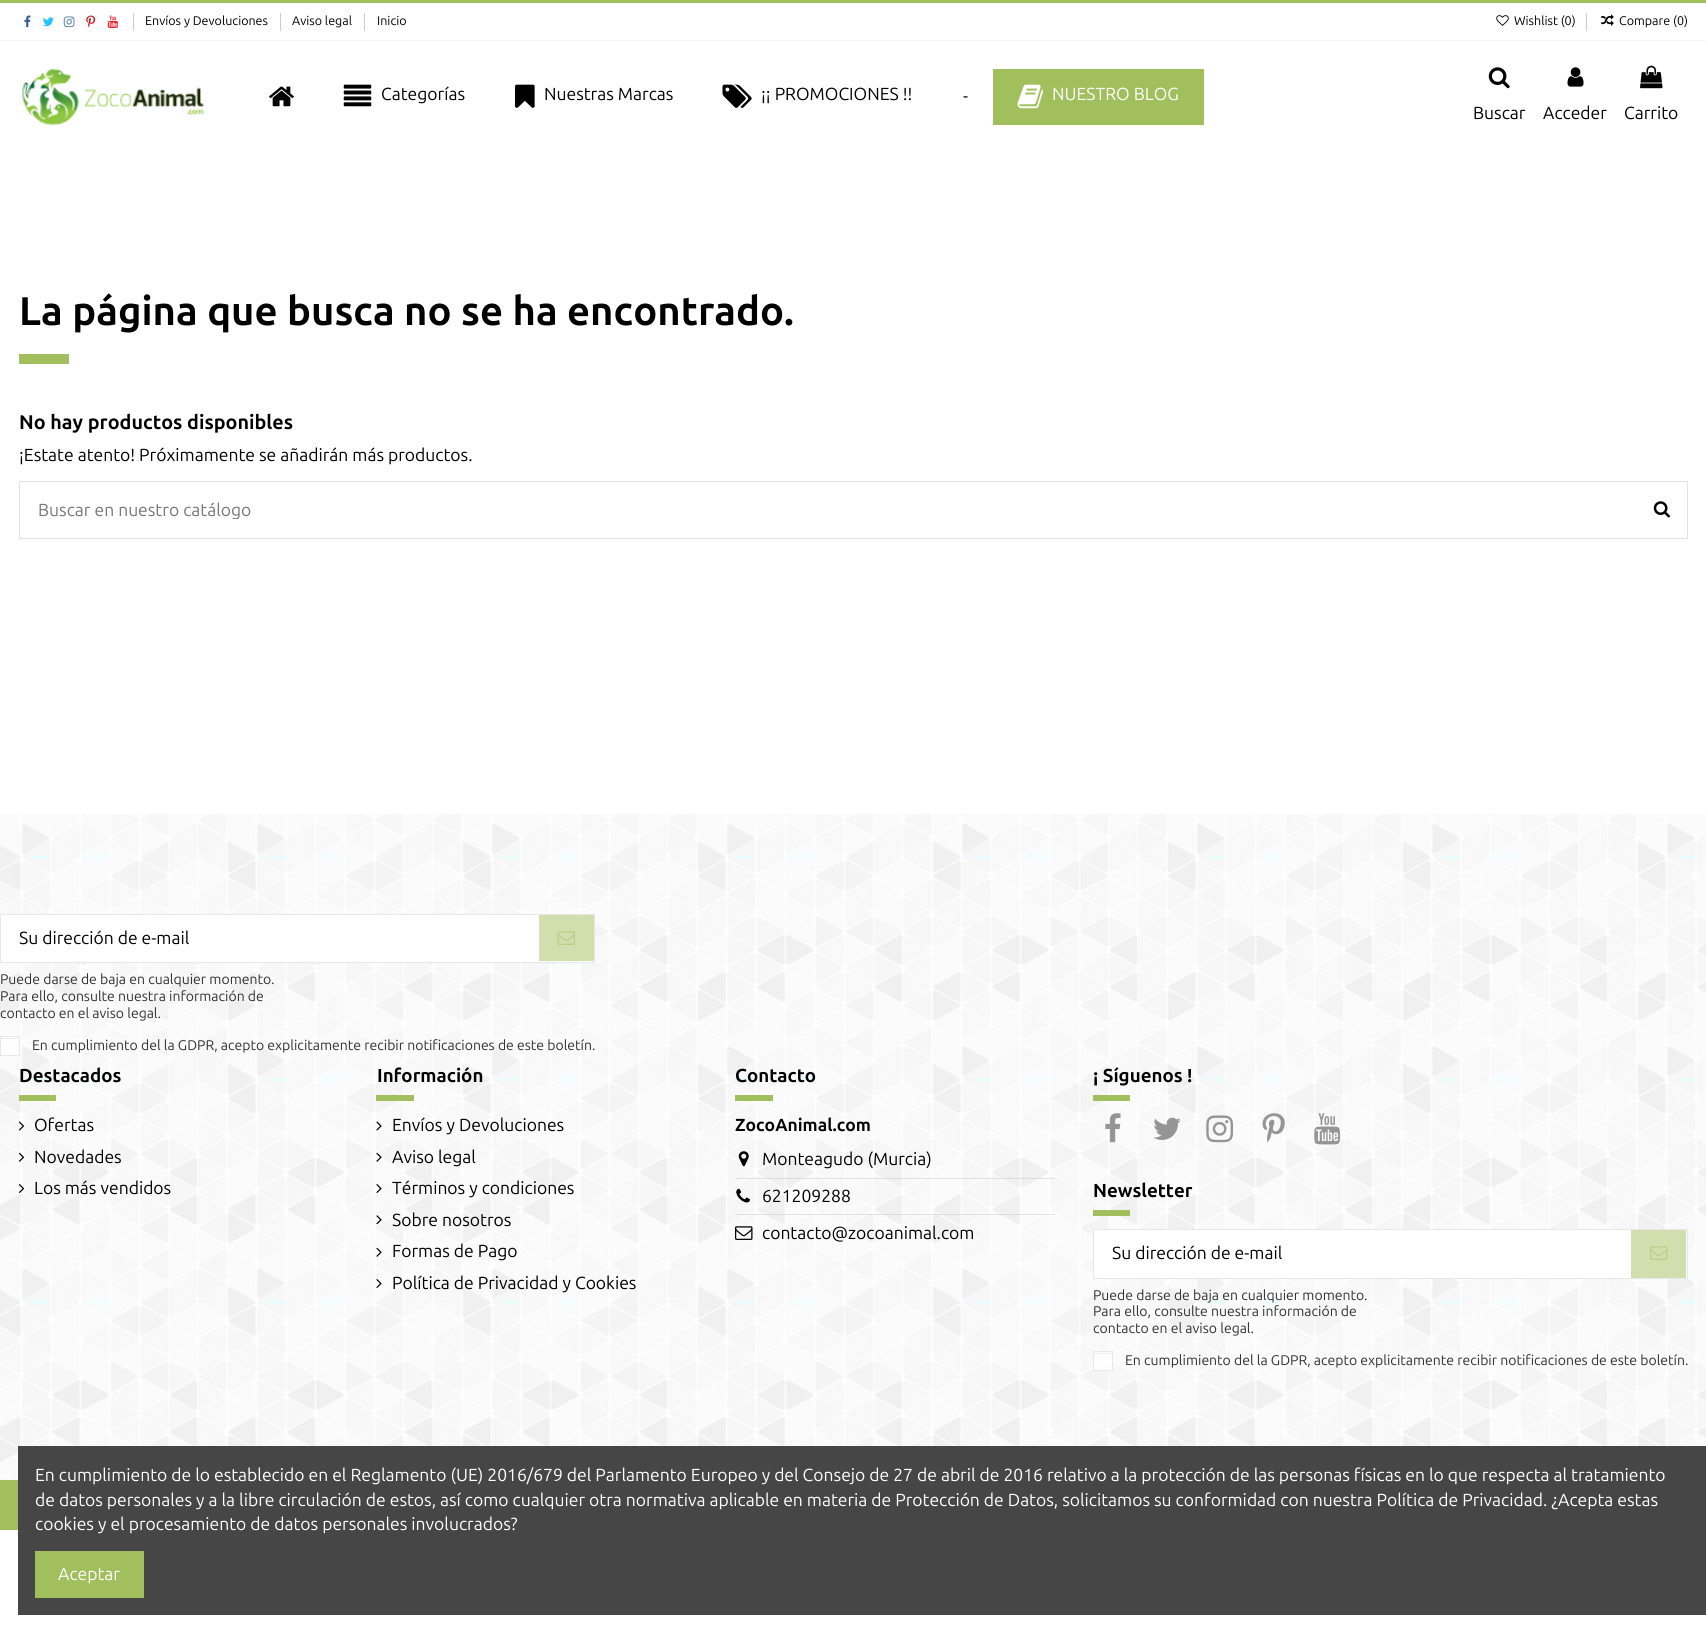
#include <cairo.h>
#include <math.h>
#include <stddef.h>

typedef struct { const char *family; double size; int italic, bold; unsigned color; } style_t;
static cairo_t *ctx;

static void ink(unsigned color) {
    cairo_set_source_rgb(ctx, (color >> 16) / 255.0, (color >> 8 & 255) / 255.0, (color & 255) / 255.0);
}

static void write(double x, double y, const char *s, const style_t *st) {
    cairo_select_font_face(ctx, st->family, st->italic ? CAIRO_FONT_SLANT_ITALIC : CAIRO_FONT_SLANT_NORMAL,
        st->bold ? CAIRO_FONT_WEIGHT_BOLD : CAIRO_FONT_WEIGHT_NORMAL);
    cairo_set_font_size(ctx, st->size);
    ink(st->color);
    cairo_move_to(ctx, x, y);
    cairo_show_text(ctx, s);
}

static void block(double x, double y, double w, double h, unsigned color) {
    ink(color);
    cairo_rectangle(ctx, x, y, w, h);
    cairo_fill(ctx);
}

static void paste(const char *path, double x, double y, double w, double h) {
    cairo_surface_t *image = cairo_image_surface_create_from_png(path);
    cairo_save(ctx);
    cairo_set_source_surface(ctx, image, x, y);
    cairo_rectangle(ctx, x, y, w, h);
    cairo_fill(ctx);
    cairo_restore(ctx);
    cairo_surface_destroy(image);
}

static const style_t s1 = {"Ubuntu", 12.5, 0, 0, 0x000000};
static const style_t s2 = {"Ubuntu", 17.5, 0, 0, 0x000000};
static const style_t s3 = {"Ubuntu", 17.5, 0, 0, 0xffffff};
static const style_t s4 = {"Ubuntu", 40, 0, 1, 0x000000};
static const style_t s5 = {"Ubuntu", 19.75, 0, 1, 0x000000};
static const style_t s6 = {"Ubuntu", 17.5, 0, 0, 0x777777};
static const style_t s7 = {"Ubuntu", 14, 0, 0, 0x313131};
static const style_t s8 = {"Ubuntu", 18.75, 0, 1, 0x000000};
static const style_t s9 = {"Ubuntu", 17.5, 0, 1, 0x000000};

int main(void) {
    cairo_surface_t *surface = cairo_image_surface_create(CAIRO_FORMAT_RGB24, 1706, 1632);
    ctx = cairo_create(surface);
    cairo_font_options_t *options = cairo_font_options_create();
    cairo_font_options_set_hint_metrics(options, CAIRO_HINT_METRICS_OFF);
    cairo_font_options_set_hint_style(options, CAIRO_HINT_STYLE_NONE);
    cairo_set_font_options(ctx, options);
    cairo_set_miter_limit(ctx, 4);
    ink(0xffffff);
    cairo_paint(ctx);
    block(0, 0, 1706, 3, 0xa2bf5e);
    block(0, 40, 1706, 1, 0xf3f3f3);
    paste("pic1.png", 24, 15, 7, 13);
    paste("pic2.png", 43, 17, 11, 10);
    paste("pic3.png", 63, 16, 12, 12);
    paste("pic4.png", 86, 15, 10, 13);
    paste("pic5.png", 107, 15, 11, 13);
    block(133, 13, 1, 18, 0xcccccc);
    write(145, 25, "Envíos y Devoluciones", &s1);
    block(280, 13, 1, 18, 0xcccccc);
    write(292, 25, "Aviso legal", &s1);
    block(364, 13, 1, 18, 0xcccccc);
    write(377, 25, "Inicio", &s1);
    paste("pic6.png", 1496, 15, 13, 11);
    write(1514, 25, "Wishlist (0)", &s1);
    block(1586, 13, 1, 18, 0xcccccc);
    paste("pic7.png", 1601, 14, 13, 12);
    write(1619, 25, "Compare (0)", &s1);
    paste("pic8.png", 22, 68, 182, 58);
    paste("pic9.png", 269, 86, 25, 21);
    paste("pic10.png", 343, 84, 29, 23);
    write(381, 100, "Categorías", &s2);
    paste("pic11.png", 515, 84, 20, 24);
    write(544, 100, "Nuestras Marcas", &s2);
    paste("pic12.png", 722, 84, 30, 24);
    write(761, 100, "¡¡ PROMOCIONES !!", &s2);
    write(963, 102, "-", &s2);
    block(993, 69, 211, 56, 0xa2bf5e);
    paste("pic13.png", 1017, 84, 26, 25);
    write(1052, 100, "NUESTRO BLOG", &s3);
    paste("pic14.png", 1488, 67, 22, 22);
    write(1473, 119, "Buscar", &s2);
    paste("pic15.png", 1567, 67, 17, 20);
    write(1543, 119, "Acceder", &s2);
    paste("pic16.png", 1640, 65, 23, 24);
    write(1624, 119, "Carrito", &s2);
    write(19, 325, "La página que busca no se ha encontrado.", &s4);
    block(19, 354, 50, 10, 0xa2bf5e);
    write(19, 429, "No hay productos disponibles", &s5);
    write(19, 461, "¡Estate atento! Próximamente se añadirán más productos.", &s2);
    cairo_rectangle(ctx, 19.5, 481.5, 1668, 57);
    ink(0xe3e3e3);
    cairo_set_line_width(ctx, 1);
    cairo_stroke(ctx);
    cairo_save(ctx);
    cairo_rectangle(ctx, 38, 499, 1613, 20);
    cairo_clip(ctx);
    write(38, 516, "Buscar en nuestro catálogo", &s6);
    cairo_restore(ctx);
    paste("pic17.png", 1653, 501, 17, 17);
    paste("pic18.png", 0, 814, 1706, 666);
    ink(0xffffff);
    cairo_rectangle(ctx, 0.5, 914.5, 594, 48);
    cairo_fill_preserve(ctx);
    ink(0xe8e8e8);
    cairo_stroke(ctx);
    write(19, 944, "Su dirección de e-mail", &s2);
    block(539, 915, 55, 46, 0xd1dfaf);
    paste("pic19.png", 557, 931, 18, 14);
    write(0, 984, "Puede darse de baja en cualquier momento.", &s7);
    write(0, 1001, "Para ello, consulte nuestra información de", &s7);
    write(0, 1018, "contacto en el aviso legal.", &s7);
    cairo_set_source_rgba(ctx, 1, 1, 1, 0.8);
    cairo_rectangle(ctx, 1, 1037, 18, 18);
    cairo_fill(ctx);
    block(1, 1038, 18, 1, 0xececec);
    cairo_rectangle(ctx, 0.5, 1036.5, 19, 19);
    ink(0xe8e8e8);
    cairo_stroke(ctx);
    write(32, 1050, "En cumplimiento del la GDPR, acepto explicitamente recibir notificaciones de este boletín.", &s7);
    write(19, 1082, "Destacados", &s8);
    block(19, 1095, 37, 6, 0xa2bf5e);
    paste("pic20.png", 18, 1121, 7, 10);
    write(34, 1131, "Ofertas", &s2);
    paste("pic21.png", 18, 1152, 7, 10);
    write(34, 1163, "Novedades", &s2);
    paste("pic22.png", 18, 1184, 7, 9);
    write(34, 1194, "Los más vendidos", &s2);
    write(377, 1082, "Información", &s8);
    block(376, 1095, 38, 6, 0xa2bf5e);
    paste("pic23.png", 376, 1121, 6, 10);
    write(392, 1131, "Envíos y Devoluciones", &s2);
    paste("pic24.png", 376, 1152, 6, 10);
    write(392, 1163, "Aviso legal", &s2);
    paste("pic25.png", 376, 1184, 6, 9);
    write(392, 1194, "Términos y condiciones", &s2);
    paste("pic26.png", 376, 1215, 6, 10);
    write(392, 1226, "Sobre nosotros", &s2);
    paste("pic27.png", 376, 1247, 6, 10);
    write(392, 1257, "Formas de Pago", &s2);
    paste("pic28.png", 376, 1279, 6, 9);
    write(392, 1289, "Política de Privacidad y Cookies", &s2);
    write(735, 1082, "Contacto", &s8);
    block(735, 1095, 38, 6, 0xa2bf5e);
    write(735, 1131, "ZocoAnimal.com", &s9);
    paste("pic29.png", 738, 1151, 11, 16);
    write(762, 1165, "Monteagudo (Murcia)", &s2);
    cairo_set_source_rgba(ctx, 0.627, 0.627, 0.627, 0.25);
    cairo_rectangle(ctx, 735, 1178, 320, 1);
    cairo_fill(ctx);
    paste("pic30.png", 736, 1188, 14, 15);
    write(762, 1202, "621209288", &s2);
    cairo_set_source_rgba(ctx, 0.627, 0.627, 0.627, 0.25);
    cairo_rectangle(ctx, 735, 1214, 320, 1);
    cairo_fill(ctx);
    paste("pic31.png", 735, 1226, 18, 14);
    write(762, 1239, "contacto@zocoanimal.com", &s2);
    write(1093, 1082, "¡ Síguenos !", &s8);
    block(1093, 1095, 37, 6, 0xa2bf5e);
    paste("pic32.png", 1105, 1113, 16, 30);
    paste("pic33.png", 1153, 1117, 28, 23);
    paste("pic34.png", 1206, 1115, 27, 28);
    paste("pic35.png", 1262, 1113, 23, 30);
    paste("pic36.png", 1314, 1113, 27, 32);
    write(1093, 1197, "Newsletter", &s8);
    block(1093, 1210, 37, 6, 0xa2bf5e);
    ink(0xffffff);
    cairo_rectangle(ctx, 1093.5, 1229.5, 594, 49);
    cairo_fill_preserve(ctx);
    ink(0xe8e8e8);
    cairo_stroke(ctx);
    write(1112, 1259, "Su dirección de e-mail", &s2);
    block(1631, 1230, 55, 48, 0xd1dfaf);
    paste("pic37.png", 1650, 1246, 18, 14);
    write(1093, 1300, "Puede darse de baja en cualquier momento.", &s7);
    write(1093, 1316, "Para ello, consulte nuestra información de", &s7);
    write(1093, 1333, "contacto en el aviso legal.", &s7);
    cairo_set_source_rgba(ctx, 1, 1, 1, 0.8);
    cairo_rectangle(ctx, 1094, 1352, 18, 18);
    cairo_fill(ctx);
    block(1094, 1353, 17, 1, 0xececec);
    cairo_rectangle(ctx, 1093.5, 1351.5, 19, 19);
    ink(0xe8e8e8);
    cairo_stroke(ctx);
    write(1125, 1365, "En cumplimiento del la GDPR, acepto explicitamente recibir notificaciones de este boletín.", &s7);
    block(0, 1480, 18, 50, 0xa2bf5e);
    block(18, 1446, 1688, 169, 0x464646);
    write(35, 1481, "En cumplimiento de lo establecido en el Reglamento (UE) 2016/679 del Parlamento Europeo y del Consejo de 27 de abril de 2016 relativo a la protección de las personas físicas en lo que respecta al tratamiento", &s3);
    write(35, 1506, "de datos personales y a la libre circulación de estos, así como cualquier otra normativa aplicable en materia de Protección de Datos, solicitamos su conformidad con nuestra Política de Privacidad. ¿Acepta estas", &s3);
    write(35, 1530, "cookies y el procesamiento de datos personales involucrados?", &s3);
    block(35, 1551, 109, 47, 0xa2bf5e);
    write(58, 1580, "Aceptar", &s3);
    cairo_surface_write_to_png(surface, "screenshot.png");
    cairo_font_options_destroy(options);
    cairo_destroy(ctx);
    cairo_surface_destroy(surface);
    return 0;
}
